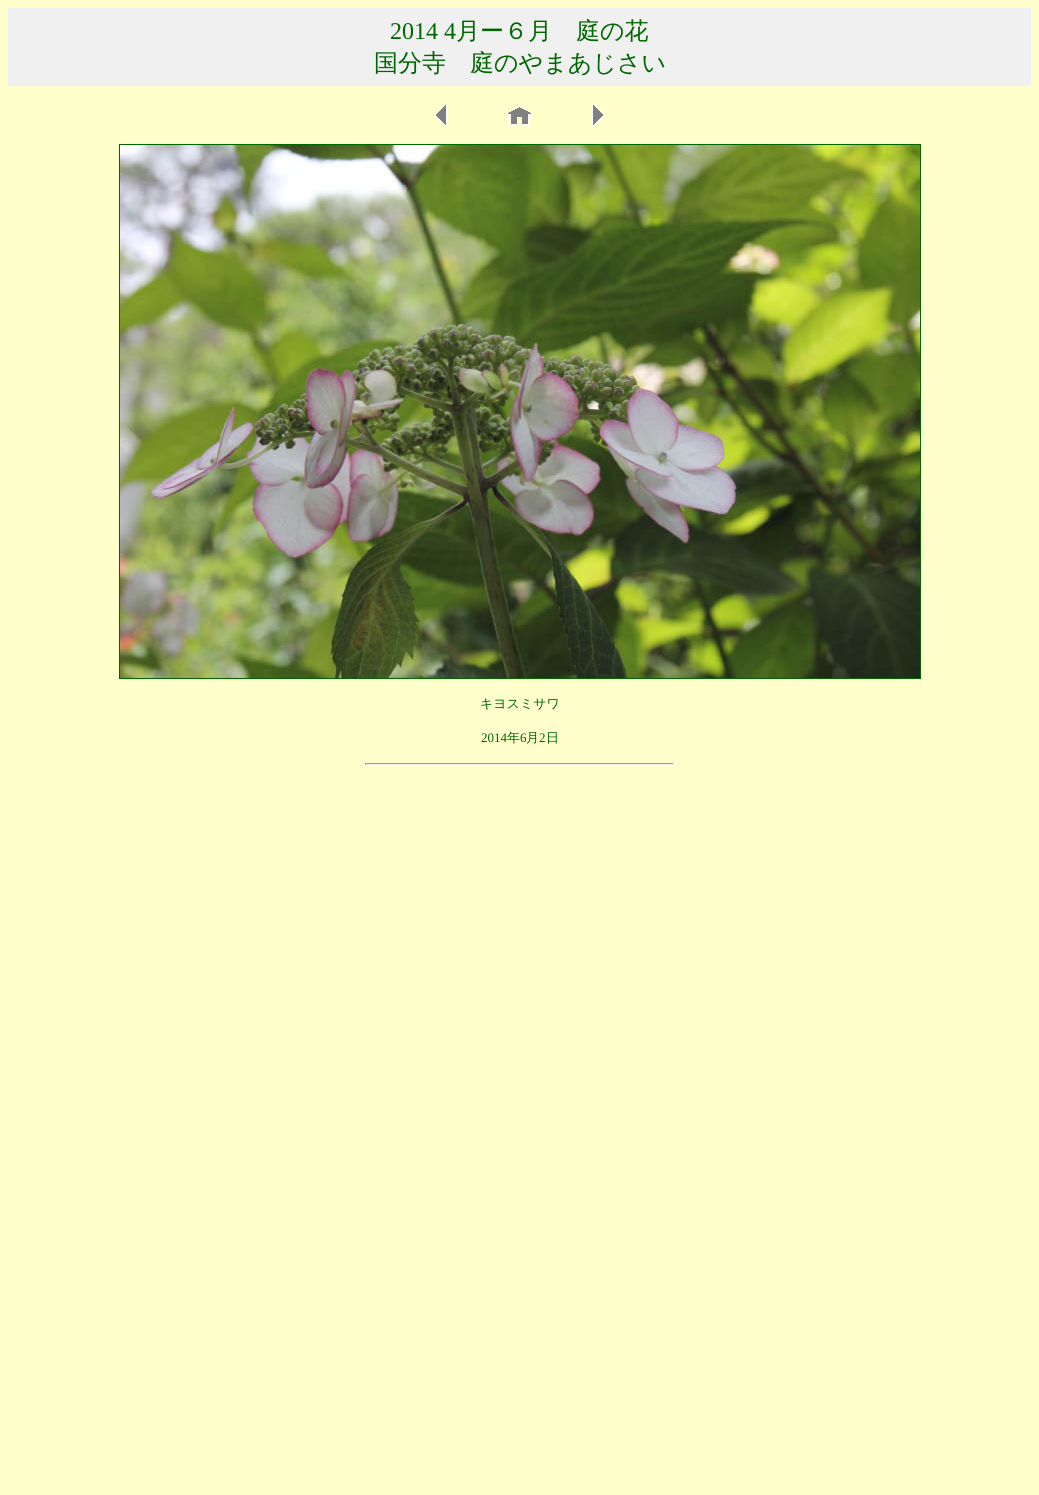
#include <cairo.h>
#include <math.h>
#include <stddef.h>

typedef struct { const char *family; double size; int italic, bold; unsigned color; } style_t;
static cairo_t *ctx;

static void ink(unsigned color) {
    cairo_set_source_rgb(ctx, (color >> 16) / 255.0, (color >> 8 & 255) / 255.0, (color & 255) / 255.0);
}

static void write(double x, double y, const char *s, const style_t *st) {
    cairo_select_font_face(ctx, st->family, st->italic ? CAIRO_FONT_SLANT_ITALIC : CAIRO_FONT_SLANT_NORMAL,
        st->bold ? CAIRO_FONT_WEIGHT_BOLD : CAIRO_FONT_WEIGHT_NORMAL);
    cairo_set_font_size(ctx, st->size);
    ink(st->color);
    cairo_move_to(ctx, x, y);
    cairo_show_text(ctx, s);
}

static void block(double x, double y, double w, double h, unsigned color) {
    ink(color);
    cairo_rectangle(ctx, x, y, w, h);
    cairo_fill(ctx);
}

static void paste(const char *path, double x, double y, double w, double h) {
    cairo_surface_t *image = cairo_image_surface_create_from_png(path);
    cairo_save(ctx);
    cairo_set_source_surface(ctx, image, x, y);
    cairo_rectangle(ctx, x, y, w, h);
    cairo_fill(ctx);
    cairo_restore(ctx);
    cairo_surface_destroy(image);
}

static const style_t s1 = {"Liberation Serif", 24, 0, 0, 0x006600};
static const style_t s2 = {"WenQuanYi Zen Hei Medium", 24, 0, 0, 0x006600};
static const style_t s3 = {"WenQuanYi Zen Hei Medium", 13, 0, 0, 0x006600};
static const style_t s4 = {"Liberation Serif", 13, 0, 0, 0x006600};

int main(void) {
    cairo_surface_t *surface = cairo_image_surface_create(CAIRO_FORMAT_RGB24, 1039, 1495);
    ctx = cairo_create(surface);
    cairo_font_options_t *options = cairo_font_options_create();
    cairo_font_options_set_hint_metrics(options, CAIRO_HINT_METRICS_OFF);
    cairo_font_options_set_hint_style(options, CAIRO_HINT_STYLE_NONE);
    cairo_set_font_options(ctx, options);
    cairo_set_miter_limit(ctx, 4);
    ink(0xffffcc);
    cairo_paint(ctx);
    block(8, 8, 1023, 78, 0xf0f0f0);
    write(390, 39, "2014 4", &s1);
    write(456, 39, "月ー６月　庭の花", &s2);
    write(374, 71, "国分寺　庭のやまあじさい", &s2);
    paste("pic1.png", 435, 104, 12, 22);
    paste("pic2.png", 507, 106, 25, 19);
    paste("pic3.png", 592, 104, 12, 22);
    cairo_rectangle(ctx, 119.5, 144.5, 801, 534);
    cairo_set_line_width(ctx, 1);
    cairo_stroke(ctx);
    paste("pic4.png", 120, 145, 800, 533);
    write(480, 708, "キヨスミサワ", &s3);
    write(481, 742, "2014", &s4);
    write(507, 742, "年", &s3);
    write(520, 742, "6", &s4);
    write(526, 742, "月", &s3);
    write(539, 742, "2", &s4);
    write(546, 742, "日", &s3);
    block(365, 763, 309, 1, 0x9f9f9f);
    block(673, 763, 1, 2, 0xeeeeee);
    block(365, 764, 309, 1, 0xeeeeee);
    block(365, 763, 1, 2, 0x9f9f9f);
    cairo_surface_write_to_png(surface, "screenshot.png");
    cairo_font_options_destroy(options);
    cairo_destroy(ctx);
    cairo_surface_destroy(surface);
    return 0;
}
